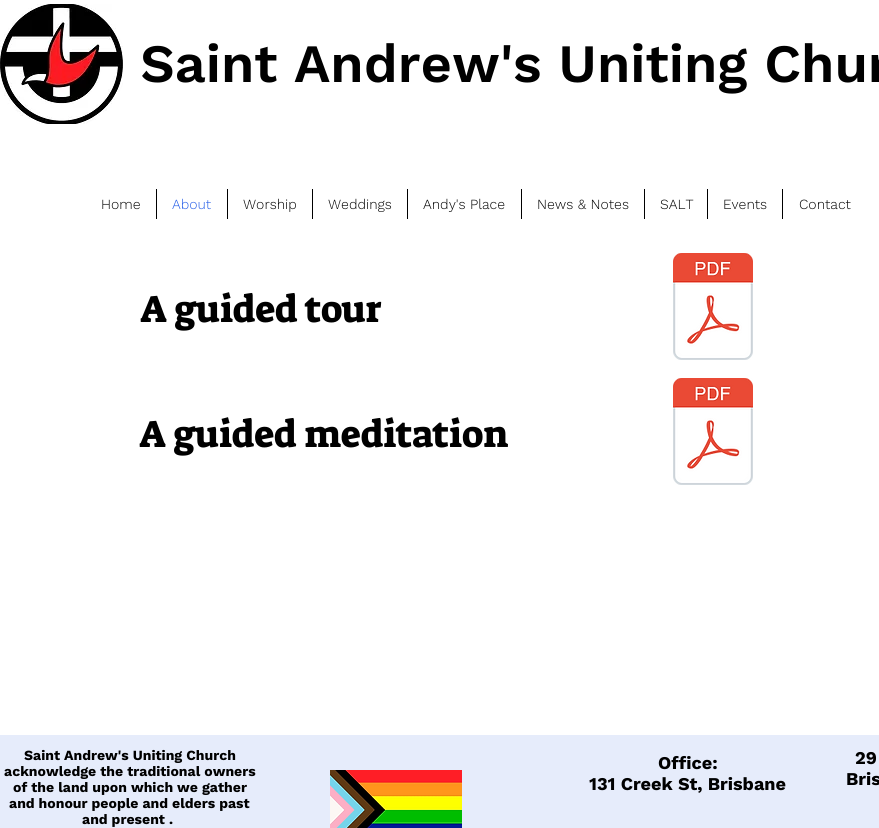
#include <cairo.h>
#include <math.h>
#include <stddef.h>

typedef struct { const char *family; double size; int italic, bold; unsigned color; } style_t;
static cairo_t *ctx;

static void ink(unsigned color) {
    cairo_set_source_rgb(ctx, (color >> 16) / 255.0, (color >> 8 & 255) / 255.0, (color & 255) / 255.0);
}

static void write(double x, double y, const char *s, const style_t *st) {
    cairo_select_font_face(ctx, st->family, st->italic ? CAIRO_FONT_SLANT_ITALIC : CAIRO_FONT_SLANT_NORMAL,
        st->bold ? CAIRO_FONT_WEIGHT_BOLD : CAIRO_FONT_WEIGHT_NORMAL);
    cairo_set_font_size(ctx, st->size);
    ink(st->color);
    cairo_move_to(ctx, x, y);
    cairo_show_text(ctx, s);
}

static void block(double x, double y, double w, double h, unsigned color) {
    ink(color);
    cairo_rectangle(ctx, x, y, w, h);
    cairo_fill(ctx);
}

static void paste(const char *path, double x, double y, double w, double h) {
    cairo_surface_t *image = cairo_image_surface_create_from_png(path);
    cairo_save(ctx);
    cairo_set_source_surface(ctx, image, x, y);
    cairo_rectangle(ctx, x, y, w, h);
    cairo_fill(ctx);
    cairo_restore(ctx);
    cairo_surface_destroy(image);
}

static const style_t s1 = {"Work Sans SemiBold", 54, 0, 0, 0x000000};
static const style_t s2 = {"Work Sans Light", 14, 0, 0, 0x000000};
static const style_t s3 = {"Work Sans Light", 14, 0, 0, 0x275fe8};
static const style_t s4 = {"Suez One", 38, 0, 0, 0x000000};
static const style_t s5 = {"Work Sans", 14, 0, 1, 0x000000};
static const style_t s6 = {"Work Sans", 18, 0, 1, 0x000000};

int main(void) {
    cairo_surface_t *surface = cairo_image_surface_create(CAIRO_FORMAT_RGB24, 879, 828);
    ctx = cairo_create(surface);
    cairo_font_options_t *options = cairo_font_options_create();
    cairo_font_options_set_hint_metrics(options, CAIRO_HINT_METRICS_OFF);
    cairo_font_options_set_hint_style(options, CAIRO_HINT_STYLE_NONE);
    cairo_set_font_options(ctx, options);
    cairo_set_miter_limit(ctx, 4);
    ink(0xffffff);
    cairo_paint(ctx);
    paste("pic1.png", 0, 4, 123, 120);
    write(140, 82, "Saint Andrew's Uniting Chur", &s1);
    write(101, 209, "Home", &s2);
    block(156, 189, 1, 30, 0x000000);
    write(172, 209, "About", &s3);
    block(227, 189, 1, 30, 0x000000);
    write(243, 209, "Worship", &s2);
    block(312, 189, 1, 30, 0x000000);
    write(328, 209, "Weddings", &s2);
    block(407, 189, 1, 30, 0x000000);
    write(423, 209, "Andy's Place", &s2);
    block(521, 189, 1, 30, 0x000000);
    write(537, 209, "News & Notes", &s2);
    block(644, 189, 1, 30, 0x000000);
    write(660, 209, "SALT", &s2);
    block(707, 189, 1, 30, 0x000000);
    write(723, 209, "Events", &s2);
    block(782, 189, 1, 30, 0x000000);
    write(799, 209, "Contact", &s2);
    write(140, 322, "A guided tour", &s4);
    paste("pic2.png", 673, 253, 80, 107);
    write(139, 447, "A guided meditation", &s4);
    paste("pic2.png", 673, 378, 80, 107);
    block(0, 735, 879, 93, 0xe6ecfb);
    write(24, 760, "Saint Andrew's Uniting Church", &s5);
    write(4, 776, "acknowledge the traditional owners", &s5);
    write(13, 792, "of the land upon which we gather", &s5);
    write(9, 808, "and honour people and elders past", &s5);
    write(82, 824, "and present .", &s5);
    paste("pic3.png", 330, 770, 132, 58);
    write(658, 769, "Office:", &s6);
    write(589, 790, "131 Creek St, Brisbane", &s6);
    write(855, 764, "29", &s6);
    write(846, 785, "Bris", &s6);
    cairo_surface_write_to_png(surface, "screenshot.png");
    cairo_font_options_destroy(options);
    cairo_destroy(ctx);
    cairo_surface_destroy(surface);
    return 0;
}
